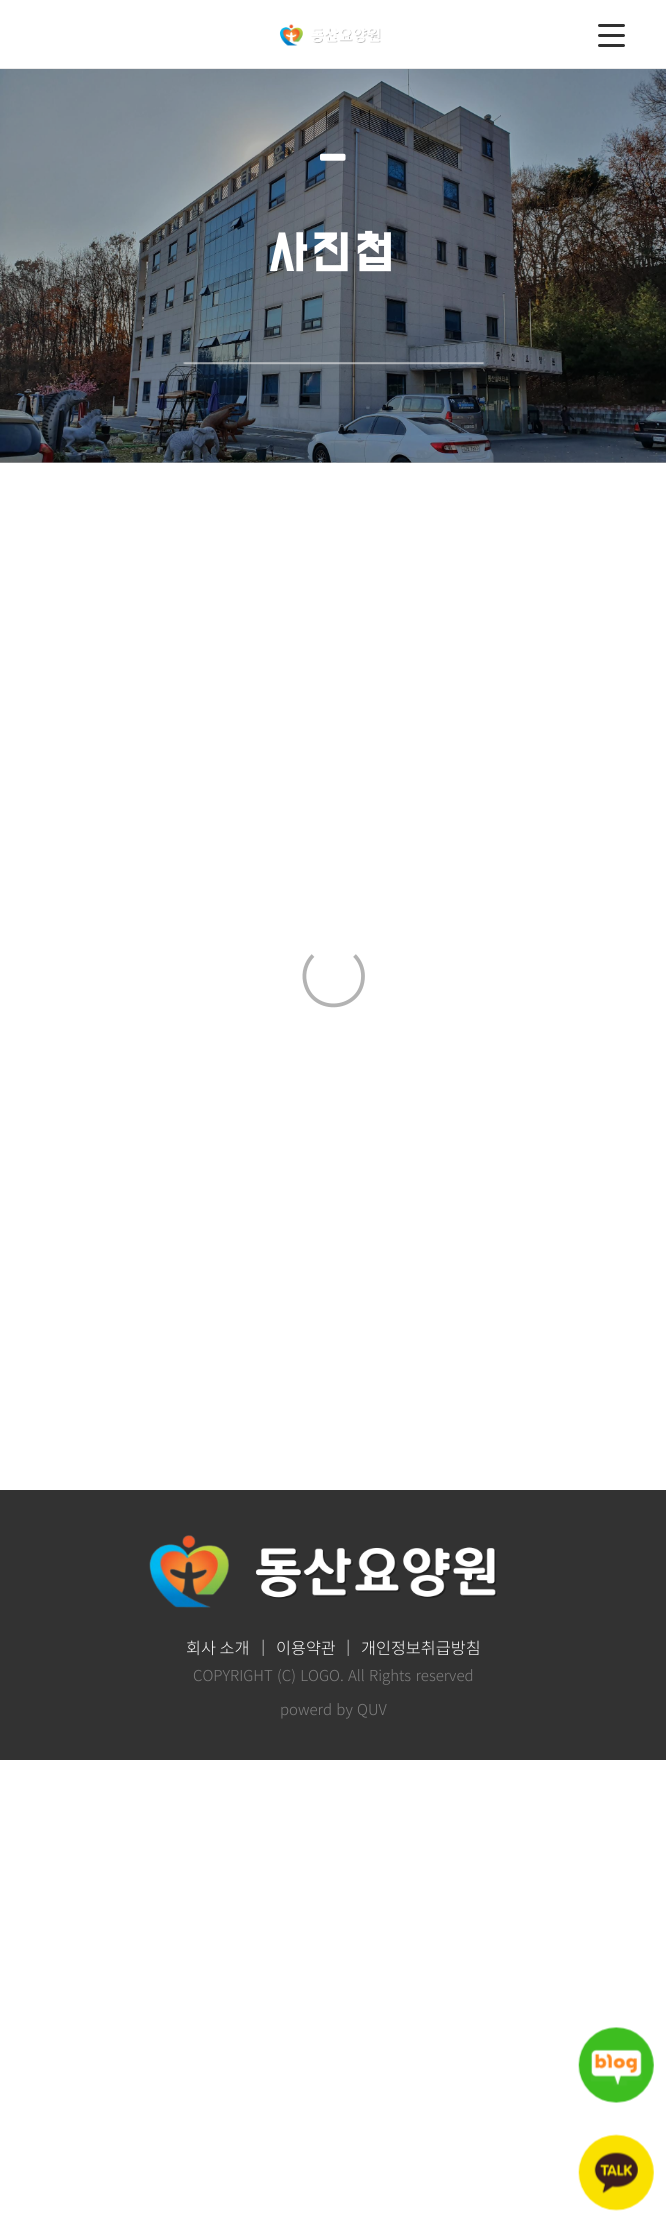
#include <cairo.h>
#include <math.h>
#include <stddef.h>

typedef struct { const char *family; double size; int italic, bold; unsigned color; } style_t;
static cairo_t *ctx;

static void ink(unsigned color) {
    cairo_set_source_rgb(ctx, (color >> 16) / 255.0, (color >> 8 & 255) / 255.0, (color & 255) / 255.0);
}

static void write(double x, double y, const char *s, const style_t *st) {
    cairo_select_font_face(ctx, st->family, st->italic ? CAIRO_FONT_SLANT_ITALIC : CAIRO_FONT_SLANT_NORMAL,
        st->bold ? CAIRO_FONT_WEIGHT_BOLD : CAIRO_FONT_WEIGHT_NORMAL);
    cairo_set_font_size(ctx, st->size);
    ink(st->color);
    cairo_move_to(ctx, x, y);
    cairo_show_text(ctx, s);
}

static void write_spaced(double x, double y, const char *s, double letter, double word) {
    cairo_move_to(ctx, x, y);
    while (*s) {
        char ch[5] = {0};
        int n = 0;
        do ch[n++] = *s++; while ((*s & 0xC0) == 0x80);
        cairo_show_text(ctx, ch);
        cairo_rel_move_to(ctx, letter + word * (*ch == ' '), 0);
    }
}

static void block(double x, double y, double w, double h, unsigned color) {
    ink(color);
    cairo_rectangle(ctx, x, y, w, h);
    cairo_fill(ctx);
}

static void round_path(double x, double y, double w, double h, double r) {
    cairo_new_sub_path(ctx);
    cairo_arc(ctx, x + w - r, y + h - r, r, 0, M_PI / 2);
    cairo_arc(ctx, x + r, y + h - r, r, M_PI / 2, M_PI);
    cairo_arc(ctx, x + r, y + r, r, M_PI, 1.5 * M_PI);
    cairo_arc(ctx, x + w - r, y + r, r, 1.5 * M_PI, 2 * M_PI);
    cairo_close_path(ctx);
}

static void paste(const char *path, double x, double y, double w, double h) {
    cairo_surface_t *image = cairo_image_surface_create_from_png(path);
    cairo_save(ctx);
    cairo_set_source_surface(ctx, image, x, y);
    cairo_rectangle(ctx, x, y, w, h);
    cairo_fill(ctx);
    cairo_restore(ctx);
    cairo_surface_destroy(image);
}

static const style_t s1 = {"Noto Sans KR Light", 16.25, 0, 0, 0xffffff};

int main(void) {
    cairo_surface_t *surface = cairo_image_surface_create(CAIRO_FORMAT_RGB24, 666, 2229);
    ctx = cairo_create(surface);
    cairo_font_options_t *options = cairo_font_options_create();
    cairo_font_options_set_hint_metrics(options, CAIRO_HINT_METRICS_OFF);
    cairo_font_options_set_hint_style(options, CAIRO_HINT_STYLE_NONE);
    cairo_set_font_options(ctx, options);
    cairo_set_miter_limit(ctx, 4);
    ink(0xffffff);
    cairo_paint(ctx);
    block(0, 462, 666, 1, 0xb3b3b3);
    block(0, 68, 666, 1, 0xeaeaea);
    paste("pic1.png", 279, 24, 102, 22);
    ink(0x303030);
    round_path(598, 24, 27, 3, 1.5);
    cairo_fill(ctx);
    round_path(598, 34, 27, 3, 1.5);
    cairo_fill(ctx);
    round_path(598, 44, 27, 3, 1.5);
    cairo_fill(ctx);
    paste("pic2.png", 0, 69, 666, 394);
    paste("pic3.png", 320, 153, 26, 8);
    cairo_select_font_face(ctx, "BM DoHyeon", CAIRO_FONT_SLANT_NORMAL, CAIRO_FONT_WEIGHT_BOLD);
    cairo_set_font_size(ctx, 40);
    ink(0xffffff);
    write_spaced(268, 264, "사진첩", 5, 0);
    paste("pic4.png", 183, 362, 302, 3);
    cairo_new_path(ctx);
    cairo_move_to(ctx, 354.5, 955.5);
    cairo_curve_to(ctx, 360, 961, 363, 968.5, 363, 976);
    cairo_curve_to(ctx, 363, 1011.5, 312, 1016.5, 305, 982);
    cairo_curve_to(ctx, 303, 972.5, 306, 962.5, 313, 955.5);
    ink(0xb3b3b3);
    cairo_set_line_width(ctx, 3.8);
    cairo_stroke(ctx);
    paste("pic5.png", 578, 2027, 76, 76);
    paste("pic6.png", 578, 2134, 76, 77);
    block(0, 1490, 666, 270, 0x323232);
    paste("pic7.png", 149, 1535, 348, 73);
    write(186, 1654, "회사 소개", &s1);
    write(255, 1654, "｜", &s1);
    write(276, 1654, "이용약관", &s1);
    write(340, 1654, "｜", &s1);
    write(361, 1654, "개인정보취급방침", &s1);
    cairo_set_font_size(ctx, 15);
    ink(0x808080);
    write_spaced(193, 1681, "COPYRIGHT (C) LOGO. All Rights reserved", 0, 1);
    write_spaced(280, 1715, "powerd by QUV", 0, 1);
    cairo_surface_write_to_png(surface, "screenshot.png");
    cairo_font_options_destroy(options);
    cairo_destroy(ctx);
    cairo_surface_destroy(surface);
    return 0;
}
